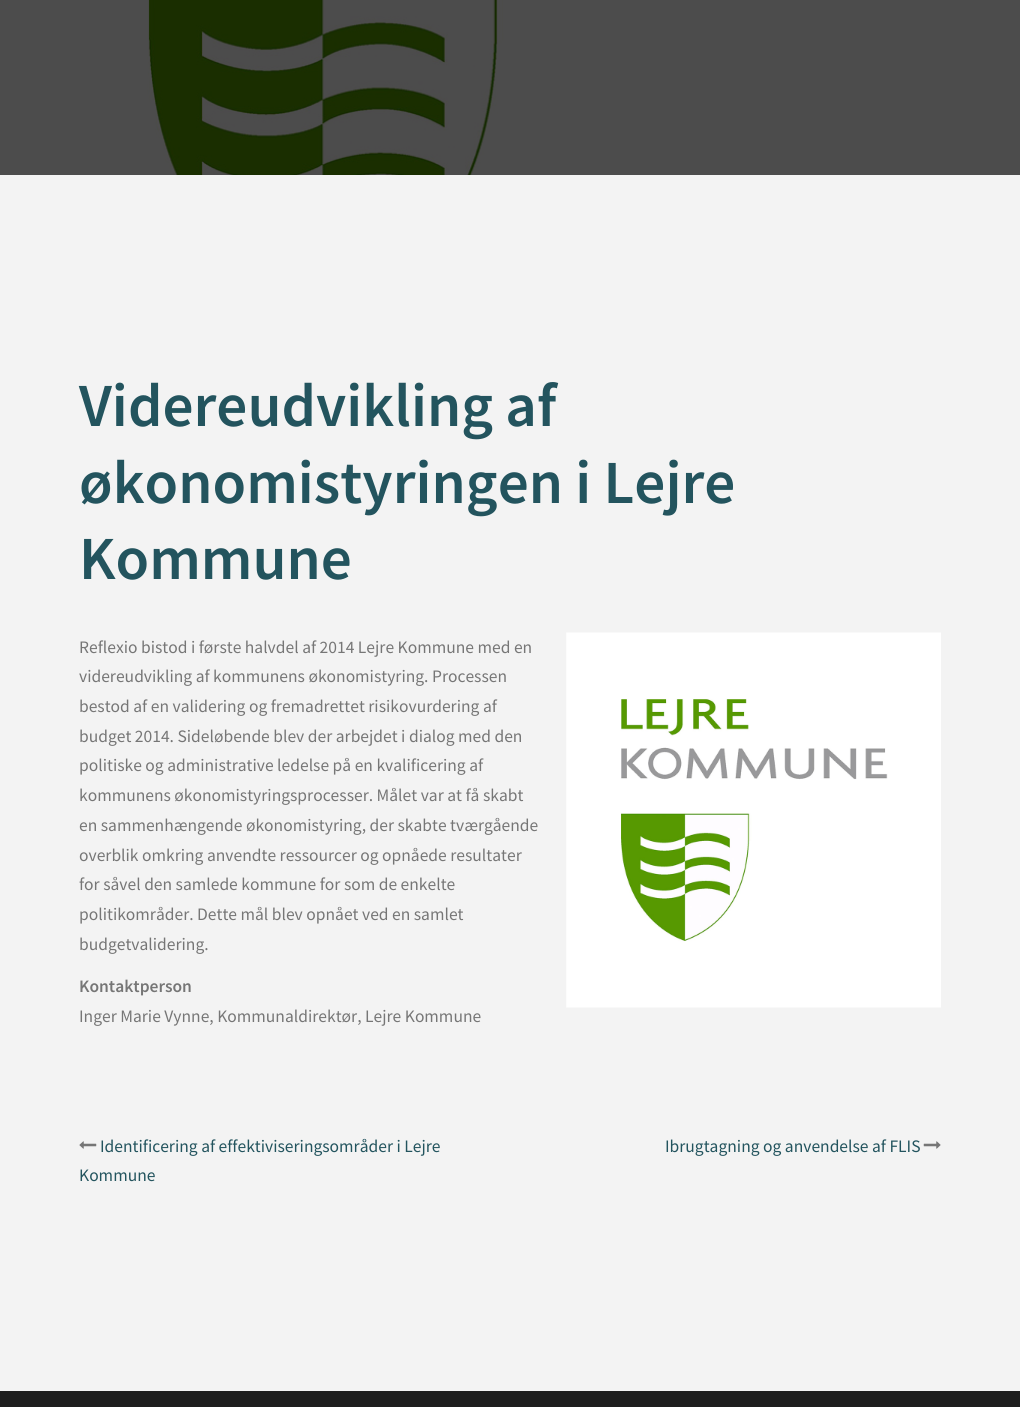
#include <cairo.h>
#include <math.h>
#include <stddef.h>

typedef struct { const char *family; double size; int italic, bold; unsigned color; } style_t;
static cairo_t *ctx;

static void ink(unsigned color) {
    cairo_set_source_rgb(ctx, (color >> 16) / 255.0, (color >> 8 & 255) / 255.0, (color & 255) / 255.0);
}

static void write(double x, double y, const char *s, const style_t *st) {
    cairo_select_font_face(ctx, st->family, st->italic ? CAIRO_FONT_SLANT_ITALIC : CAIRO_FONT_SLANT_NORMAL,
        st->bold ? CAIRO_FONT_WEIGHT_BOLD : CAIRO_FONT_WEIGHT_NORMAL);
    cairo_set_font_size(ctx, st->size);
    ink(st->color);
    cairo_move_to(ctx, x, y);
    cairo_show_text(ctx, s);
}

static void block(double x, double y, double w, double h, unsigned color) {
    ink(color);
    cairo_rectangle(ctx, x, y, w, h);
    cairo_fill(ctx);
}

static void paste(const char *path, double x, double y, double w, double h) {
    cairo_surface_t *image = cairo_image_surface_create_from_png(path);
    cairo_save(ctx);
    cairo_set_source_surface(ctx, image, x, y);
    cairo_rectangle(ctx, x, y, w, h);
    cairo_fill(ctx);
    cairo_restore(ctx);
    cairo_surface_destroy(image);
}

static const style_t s1 = {"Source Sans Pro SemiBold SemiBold", 61.25, 0, 0, 0x23545e};
static const style_t s2 = {"Source Sans Pro", 17.5, 0, 0, 0x767676};
static const style_t s3 = {"Source Sans Pro SemiBold SemiBold", 17.5, 0, 0, 0x767676};
static const style_t s4 = {"Source Sans Pro", 17.5, 0, 0, 0x23545e};

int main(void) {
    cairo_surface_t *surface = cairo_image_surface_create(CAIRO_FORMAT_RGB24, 1020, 1407);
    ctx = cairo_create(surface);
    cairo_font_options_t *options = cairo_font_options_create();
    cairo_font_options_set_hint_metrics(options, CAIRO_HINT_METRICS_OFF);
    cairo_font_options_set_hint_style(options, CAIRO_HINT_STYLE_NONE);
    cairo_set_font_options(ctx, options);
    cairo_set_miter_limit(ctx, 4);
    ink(0xf3f3f3);
    cairo_paint(ctx);
    paste("pic1.png", 0, 0, 1020, 175);
    write(79, 426, "Videreudvikling af", &s1);
    write(79, 503, "økonomistyringen i Lejre", &s1);
    write(79, 579, "Kommune", &s1);
    write(79, 653, "Reflexio bistod i første halvdel af 2014 Lejre Kommune med en", &s2);
    paste("pic2.png", 566, 632, 375, 376);
    write(79, 682, "videreudvikling af kommunens økonomistyring. Processen", &s2);
    write(79, 712, "bestod af en validering og fremadrettet risikovurdering af", &s2);
    write(79, 742, "budget 2014. Sideløbende blev der arbejdet i dialog med den", &s2);
    write(79, 771, "politiske og administrative ledelse på en kvalificering af", &s2);
    write(79, 801, "kommunens økonomistyringsprocesser. Målet var at få skabt", &s2);
    write(79, 831, "en sammenhængende økonomistyring, der skabte tværgående", &s2);
    write(79, 861, "overblik omkring anvendte ressourcer og opnåede resultater", &s2);
    write(79, 890, "for såvel den samlede kommune for som de enkelte", &s2);
    write(79, 920, "politikområder. Dette mål blev opnået ved en samlet", &s2);
    write(79, 950, "budgetvalidering.", &s2);
    write(79, 992, "Kontaktperson", &s3);
    write(79, 1022, "Inger Marie Vynne, Kommunaldirektør, Lejre Kommune", &s2);
    paste("pic3.png", 79, 1141, 18, 8);
    write(100, 1152, "Identificering af effektiviseringsområder i Lejre", &s4);
    write(79, 1181, "Kommune", &s4);
    write(665, 1152, "Ibrugtagning og anvendelse af FLIS", &s4);
    paste("pic4.png", 923, 1141, 18, 8);
    block(0, 1391, 1020, 16, 0x1e1e1e);
    cairo_surface_write_to_png(surface, "screenshot.png");
    cairo_font_options_destroy(options);
    cairo_destroy(ctx);
    cairo_surface_destroy(surface);
    return 0;
}
